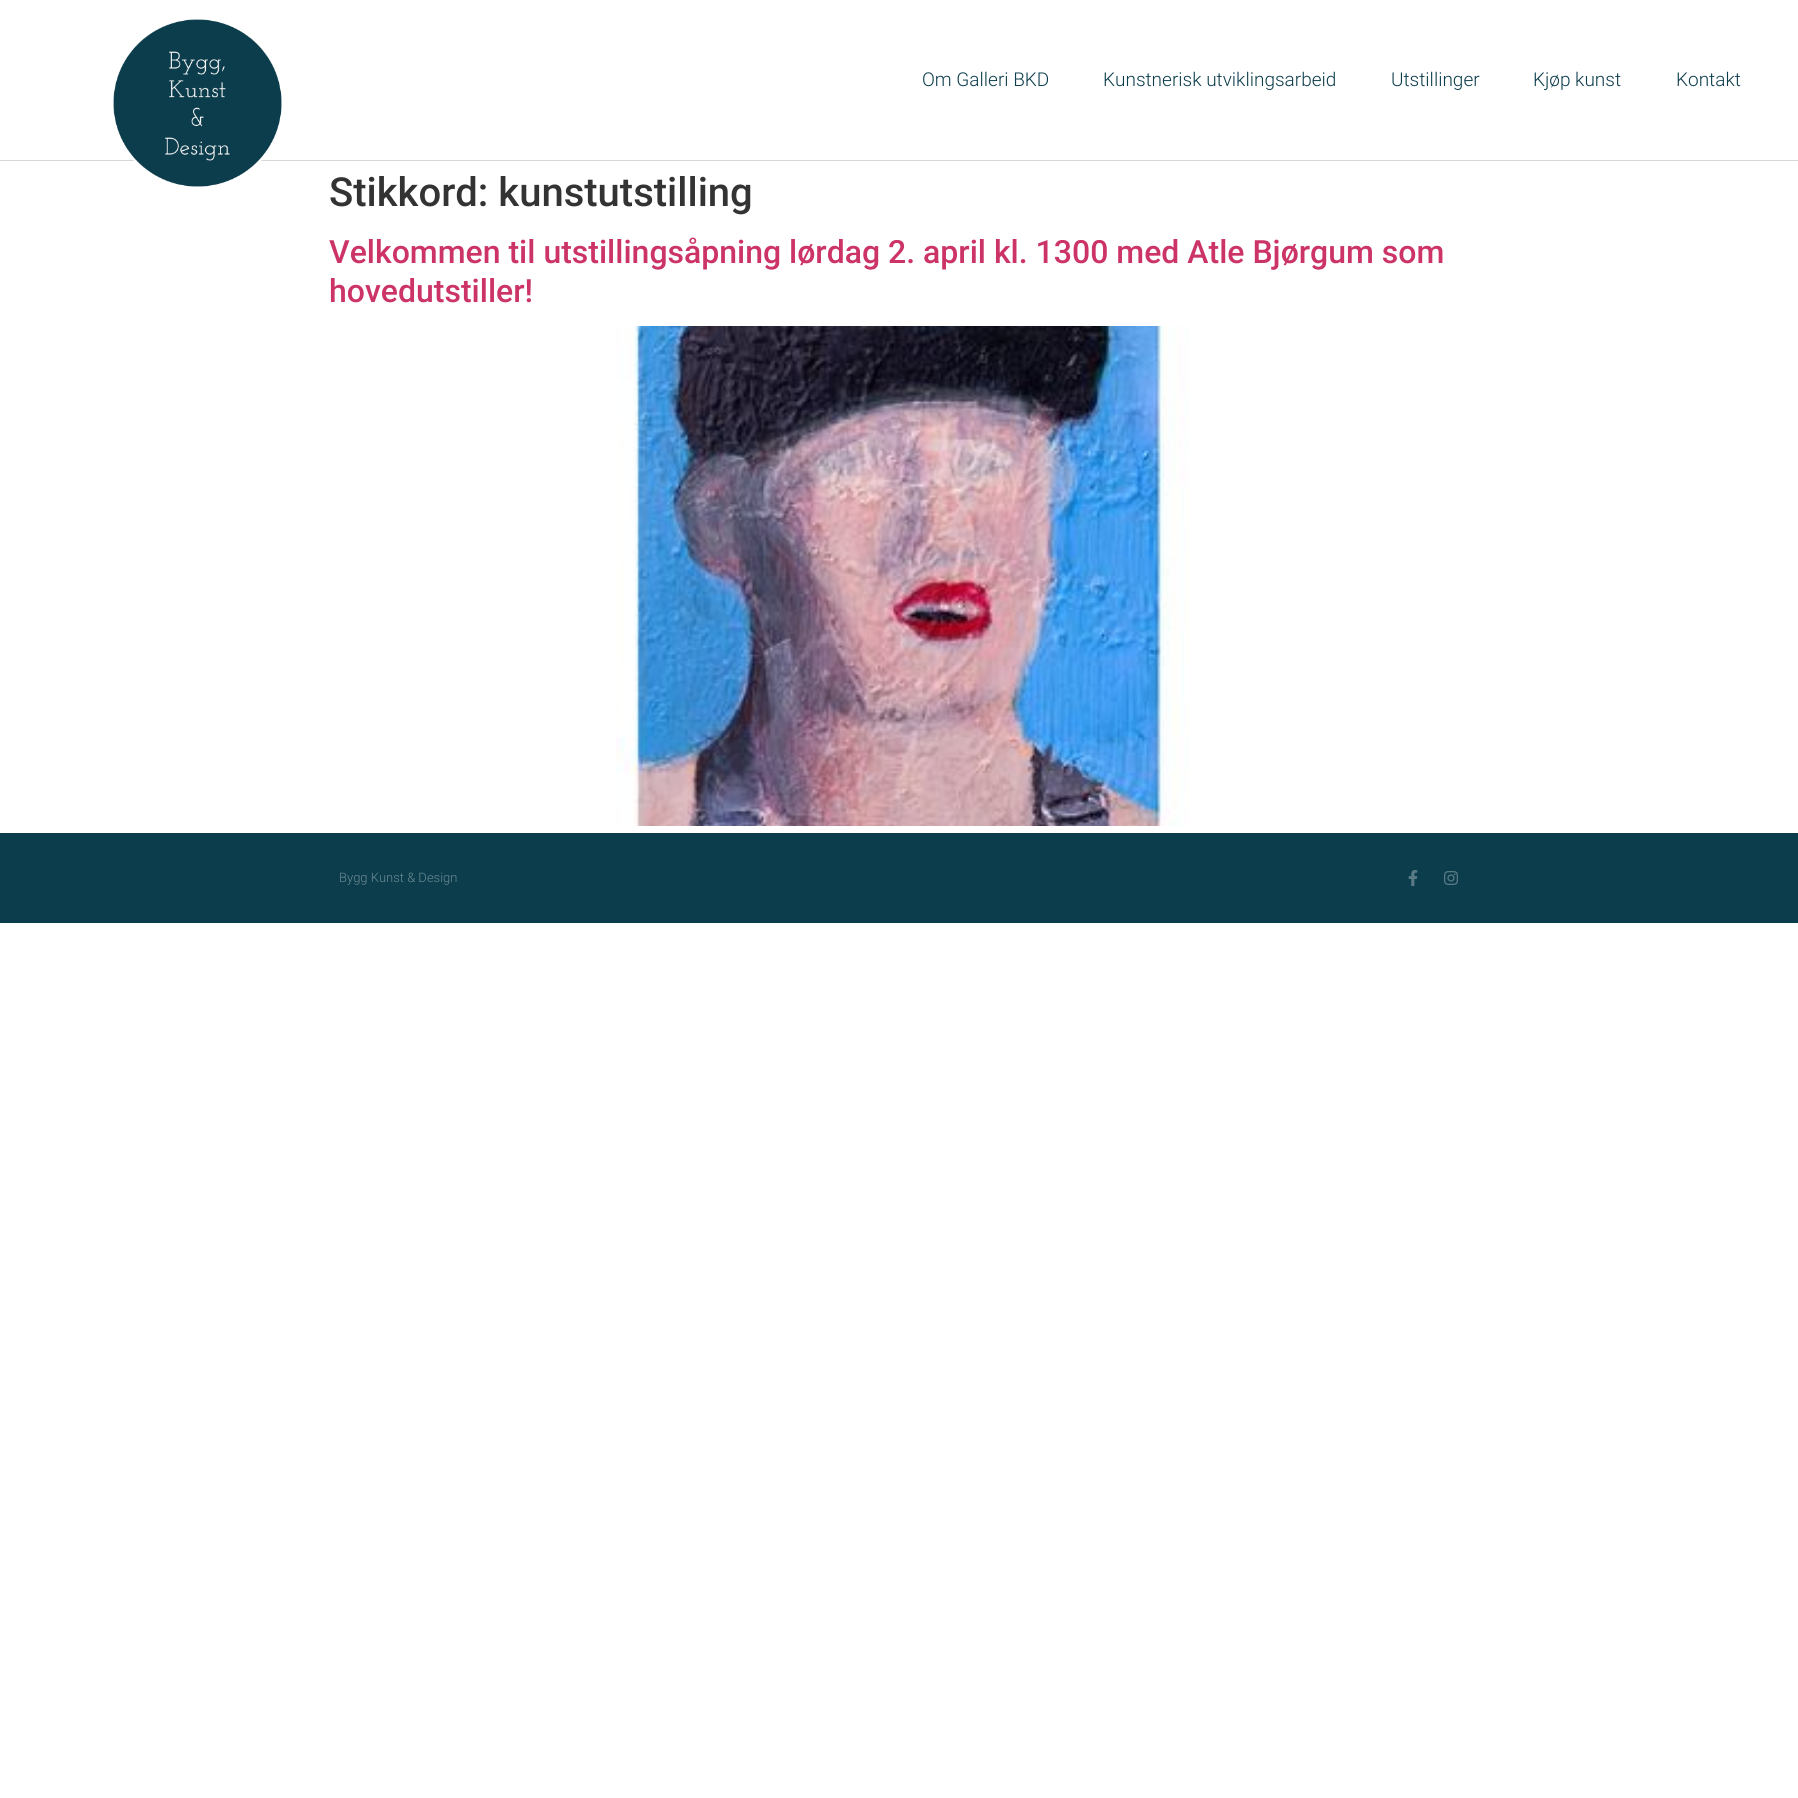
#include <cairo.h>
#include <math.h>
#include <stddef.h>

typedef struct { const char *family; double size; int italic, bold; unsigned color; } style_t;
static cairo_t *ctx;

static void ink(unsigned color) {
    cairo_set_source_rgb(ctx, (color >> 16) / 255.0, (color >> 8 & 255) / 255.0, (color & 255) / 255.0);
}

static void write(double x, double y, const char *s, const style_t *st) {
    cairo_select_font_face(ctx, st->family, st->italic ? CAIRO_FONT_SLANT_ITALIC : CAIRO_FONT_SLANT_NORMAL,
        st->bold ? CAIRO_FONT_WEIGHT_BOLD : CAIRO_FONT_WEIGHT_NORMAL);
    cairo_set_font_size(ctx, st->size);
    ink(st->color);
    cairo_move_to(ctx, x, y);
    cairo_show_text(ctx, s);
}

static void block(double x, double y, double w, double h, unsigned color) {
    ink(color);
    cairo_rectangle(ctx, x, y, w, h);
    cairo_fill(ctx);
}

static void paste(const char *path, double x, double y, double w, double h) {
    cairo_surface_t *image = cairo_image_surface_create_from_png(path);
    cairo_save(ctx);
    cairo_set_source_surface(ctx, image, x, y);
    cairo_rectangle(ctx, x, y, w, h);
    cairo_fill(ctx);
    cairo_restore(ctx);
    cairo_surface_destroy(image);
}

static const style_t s1 = {"Roboto Light", 19, 0, 0, 0x0c3d4c};
static const style_t s2 = {"Roboto Medium", 40, 0, 0, 0x333333};
static const style_t s3 = {"Roboto Medium", 32, 0, 0, 0xcc3366};
static const style_t s4 = {"Roboto Light", 13, 0, 0, 0x6b8992};

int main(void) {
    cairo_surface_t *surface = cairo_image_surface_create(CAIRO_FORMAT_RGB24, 1798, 1798);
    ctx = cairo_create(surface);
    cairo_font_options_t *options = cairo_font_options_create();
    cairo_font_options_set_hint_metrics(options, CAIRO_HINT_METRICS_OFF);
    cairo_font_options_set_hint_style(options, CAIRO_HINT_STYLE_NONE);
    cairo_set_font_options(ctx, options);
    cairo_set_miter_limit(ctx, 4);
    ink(0xffffff);
    cairo_paint(ctx);
    block(0, 160, 1798, 1, 0xd6d6d6);
    paste("pic1.png", 113, 19, 169, 168);
    write(922, 86, "Om Galleri BKD", &s1);
    write(1103, 86, "Kunstnerisk utviklingsarbeid", &s1);
    write(1391, 86, "Utstillinger", &s1);
    write(1533, 86, "Kjøp kunst", &s1);
    write(1676, 86, "Kontakt", &s1);
    write(329, 206, "Stikkord: kunstutstilling", &s2);
    write(329, 263, "Velkommen til utstillingsåpning lørdag 2. april kl. 1300 med Atle Bjørgum som", &s3);
    write(329, 302, "hovedutstiller!", &s3);
    paste("pic2.png", 616, 326, 573, 500);
    block(0, 833, 1798, 90, 0x0c3d4c);
    write(339, 882, "Bygg Kunst & Design", &s4);
    paste("pic3.png", 1408, 870, 10, 16);
    paste("pic4.png", 1444, 871, 14, 14);
    cairo_surface_write_to_png(surface, "screenshot.png");
    cairo_font_options_destroy(options);
    cairo_destroy(ctx);
    cairo_surface_destroy(surface);
    return 0;
}
